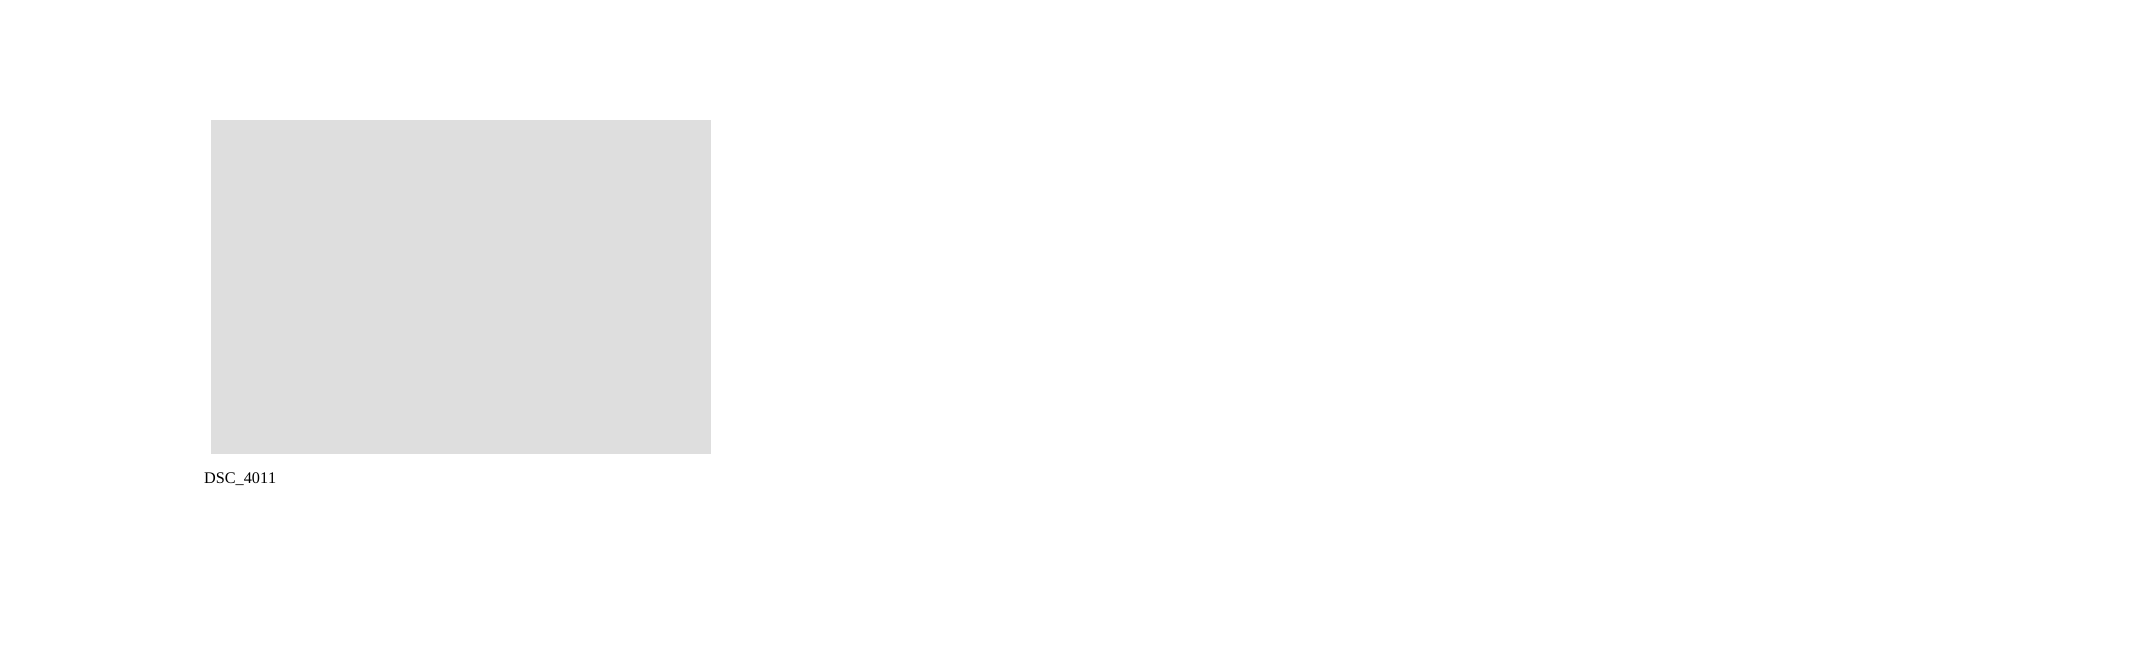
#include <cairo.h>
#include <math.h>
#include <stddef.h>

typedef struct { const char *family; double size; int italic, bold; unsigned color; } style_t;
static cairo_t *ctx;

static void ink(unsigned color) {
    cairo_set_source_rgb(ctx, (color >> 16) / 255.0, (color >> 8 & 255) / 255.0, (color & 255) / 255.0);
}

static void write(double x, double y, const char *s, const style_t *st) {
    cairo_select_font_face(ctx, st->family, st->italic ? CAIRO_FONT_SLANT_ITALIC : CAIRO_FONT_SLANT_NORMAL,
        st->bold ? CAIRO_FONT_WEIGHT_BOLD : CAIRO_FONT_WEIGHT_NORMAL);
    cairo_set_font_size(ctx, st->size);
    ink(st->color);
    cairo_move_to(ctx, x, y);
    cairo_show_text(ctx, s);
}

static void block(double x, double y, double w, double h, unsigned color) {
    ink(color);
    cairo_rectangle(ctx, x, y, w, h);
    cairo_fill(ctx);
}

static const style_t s1 = {"Liberation Serif", 16.25, 0, 0, 0x000000};

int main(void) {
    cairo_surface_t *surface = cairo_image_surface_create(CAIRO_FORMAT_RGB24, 2134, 657);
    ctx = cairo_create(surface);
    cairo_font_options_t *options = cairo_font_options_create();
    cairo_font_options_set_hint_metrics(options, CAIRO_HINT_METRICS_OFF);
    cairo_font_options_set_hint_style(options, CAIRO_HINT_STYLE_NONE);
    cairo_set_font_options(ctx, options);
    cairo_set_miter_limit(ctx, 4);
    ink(0xffffff);
    cairo_paint(ctx);
    block(211, 120, 500, 334, 0xdedede);
    write(204, 483, "DSC_4011", &s1);
    cairo_surface_write_to_png(surface, "screenshot.png");
    cairo_font_options_destroy(options);
    cairo_destroy(ctx);
    cairo_surface_destroy(surface);
    return 0;
}
